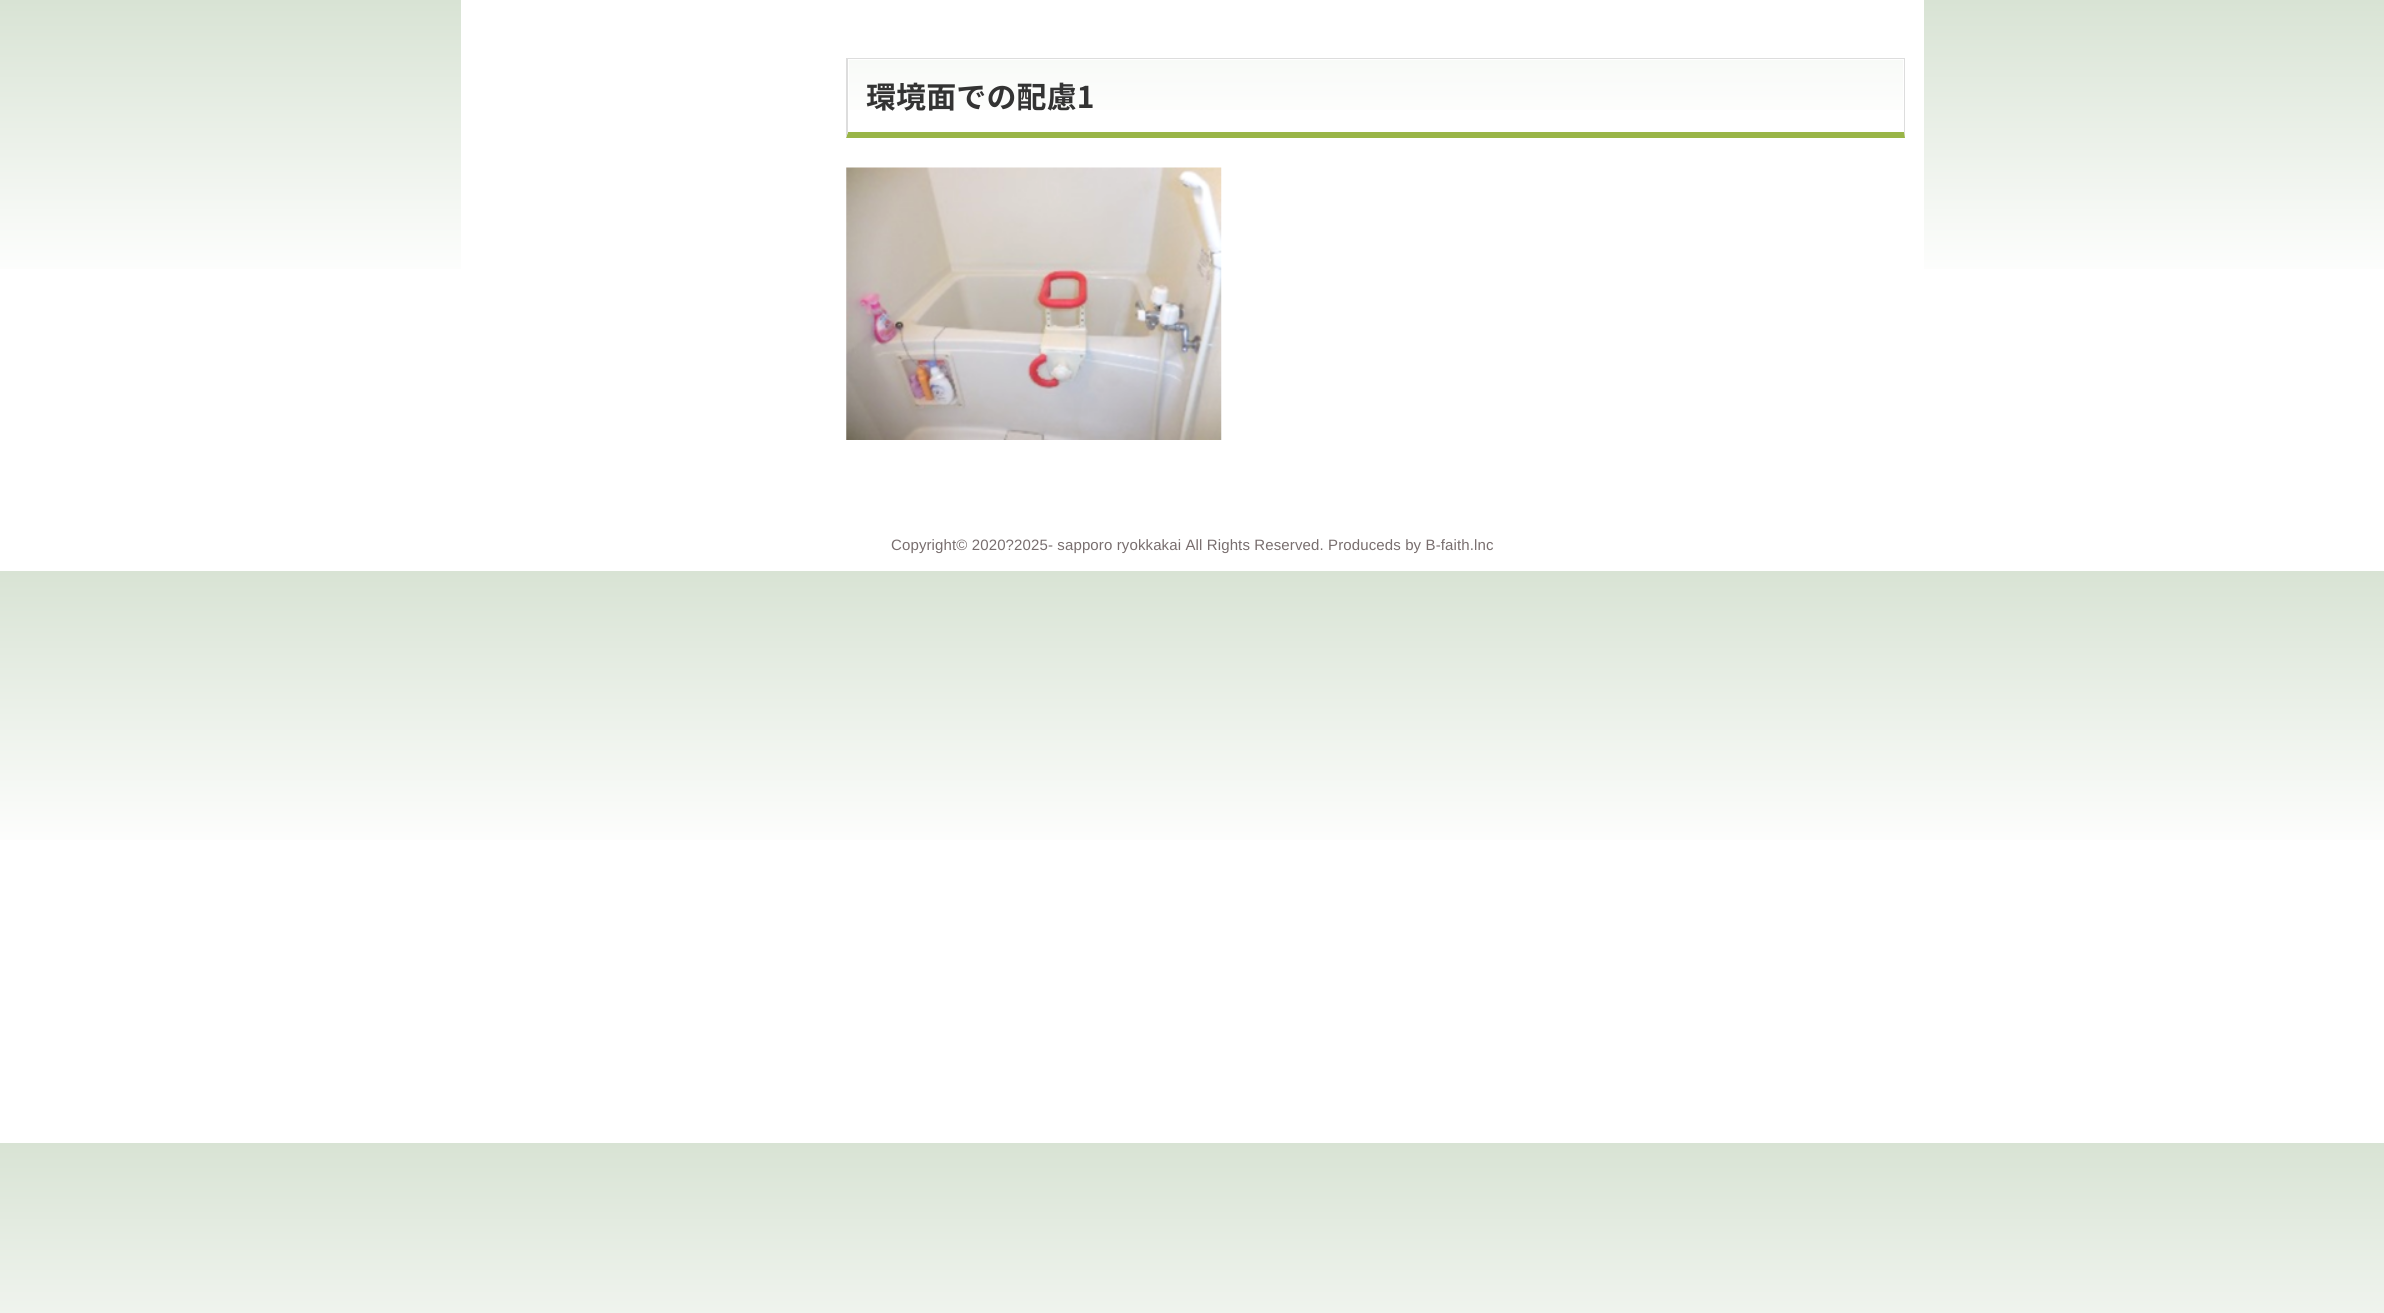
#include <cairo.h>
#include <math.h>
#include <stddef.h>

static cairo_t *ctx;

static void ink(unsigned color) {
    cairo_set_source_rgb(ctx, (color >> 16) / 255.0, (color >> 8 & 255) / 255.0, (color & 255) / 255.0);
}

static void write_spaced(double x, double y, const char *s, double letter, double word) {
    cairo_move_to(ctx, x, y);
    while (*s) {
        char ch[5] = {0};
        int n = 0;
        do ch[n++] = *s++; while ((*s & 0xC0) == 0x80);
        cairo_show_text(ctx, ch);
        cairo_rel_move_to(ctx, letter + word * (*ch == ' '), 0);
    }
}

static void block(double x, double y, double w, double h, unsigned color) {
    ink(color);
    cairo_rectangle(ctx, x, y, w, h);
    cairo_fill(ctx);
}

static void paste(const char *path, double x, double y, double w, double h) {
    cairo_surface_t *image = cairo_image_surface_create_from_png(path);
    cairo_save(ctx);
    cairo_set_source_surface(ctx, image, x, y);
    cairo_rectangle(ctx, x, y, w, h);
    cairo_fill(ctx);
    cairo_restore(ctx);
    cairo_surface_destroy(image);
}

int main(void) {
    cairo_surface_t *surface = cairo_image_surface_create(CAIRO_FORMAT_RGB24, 2384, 1313);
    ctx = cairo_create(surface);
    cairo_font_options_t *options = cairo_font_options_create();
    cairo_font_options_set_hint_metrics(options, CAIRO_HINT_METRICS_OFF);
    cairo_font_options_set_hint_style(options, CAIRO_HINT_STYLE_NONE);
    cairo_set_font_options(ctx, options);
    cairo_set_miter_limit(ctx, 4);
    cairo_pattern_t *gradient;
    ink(0xffffff);
    cairo_paint(ctx);
    gradient = cairo_pattern_create_linear(1193, 0, 1193, 571);
    cairo_pattern_add_color_stop_rgba(gradient, 0, 0.847, 0.89, 0.831, 1);
    cairo_pattern_add_color_stop_rgba(gradient, 0.5, 1, 1, 1, 1);
    cairo_set_source(ctx, gradient);
    cairo_pattern_destroy(gradient);
    cairo_rectangle(ctx, 0, 0, 2384, 269);
    cairo_fill(ctx);
    gradient = cairo_pattern_create_linear(1193, 571, 1193, 1143);
    cairo_pattern_add_color_stop_rgba(gradient, 0, 0.847, 0.89, 0.831, 1);
    cairo_pattern_add_color_stop_rgba(gradient, 0.5, 1, 1, 1, 1);
    cairo_set_source(ctx, gradient);
    cairo_pattern_destroy(gradient);
    cairo_rectangle(ctx, 0, 571, 2384, 269);
    cairo_fill(ctx);
    gradient = cairo_pattern_create_linear(1193, 1142, 1193, 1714);
    cairo_pattern_add_color_stop_rgba(gradient, 0, 0.847, 0.89, 0.831, 1);
    cairo_pattern_add_color_stop_rgba(gradient, 0.5, 1, 1, 1, 1);
    cairo_set_source(ctx, gradient);
    cairo_pattern_destroy(gradient);
    cairo_rectangle(ctx, 0, 1143, 2384, 170);
    cairo_fill(ctx);
    block(461, 0, 1463, 269, 0xffffff);
    gradient = cairo_pattern_create_linear(1376, 59, 1376, 133);
    cairo_pattern_add_color_stop_rgba(gradient, 0.01, 0.973, 0.98, 0.969, 1);
    cairo_pattern_add_color_stop_rgba(gradient, 0.99, 1, 1, 1, 1);
    cairo_set_source(ctx, gradient);
    cairo_pattern_destroy(gradient);
    cairo_rectangle(ctx, 849, 60, 1054, 50);
    cairo_fill(ctx);
    block(846, 58, 1059, 1, 0xdddddd);
    cairo_new_path(ctx);
    cairo_move_to(ctx, 1905, 58);
    cairo_line_to(ctx, 1905, 138);
    cairo_line_to(ctx, 1904, 132);
    cairo_line_to(ctx, 1904, 59);
    cairo_close_path(ctx);
    cairo_fill(ctx);
    ink(0x99b547);
    cairo_new_path(ctx);
    cairo_move_to(ctx, 1905, 138);
    cairo_line_to(ctx, 846, 138);
    cairo_line_to(ctx, 848, 132);
    cairo_line_to(ctx, 1904, 132);
    cairo_close_path(ctx);
    cairo_fill(ctx);
    ink(0xdddddd);
    cairo_new_path(ctx);
    cairo_move_to(ctx, 846, 138);
    cairo_line_to(ctx, 846, 58);
    cairo_line_to(ctx, 848, 59);
    cairo_line_to(ctx, 848, 132);
    cairo_close_path(ctx);
    cairo_fill(ctx);
    cairo_select_font_face(ctx, "Noto Sans JP", CAIRO_FONT_SLANT_NORMAL, CAIRO_FONT_WEIGHT_BOLD);
    cairo_set_font_size(ctx, 30);
    ink(0x333333);
    write_spaced(866, 108, "環境面での配慮1", 0.12, 0);
    paste("pic1.png", 846, 167, 376, 273);
    cairo_select_font_face(ctx, "Liberation Sans", CAIRO_FONT_SLANT_NORMAL, CAIRO_FONT_WEIGHT_NORMAL);
    cairo_set_font_size(ctx, 15);
    ink(0x786e6e);
    write_spaced(891, 550, "Copyright© 2020?2025- sapporo ryokkakai All Rights Reserved. Produceds by B-faith.lnc", 0.12, 0);
    cairo_surface_write_to_png(surface, "screenshot.png");
    cairo_font_options_destroy(options);
    cairo_destroy(ctx);
    cairo_surface_destroy(surface);
    return 0;
}
